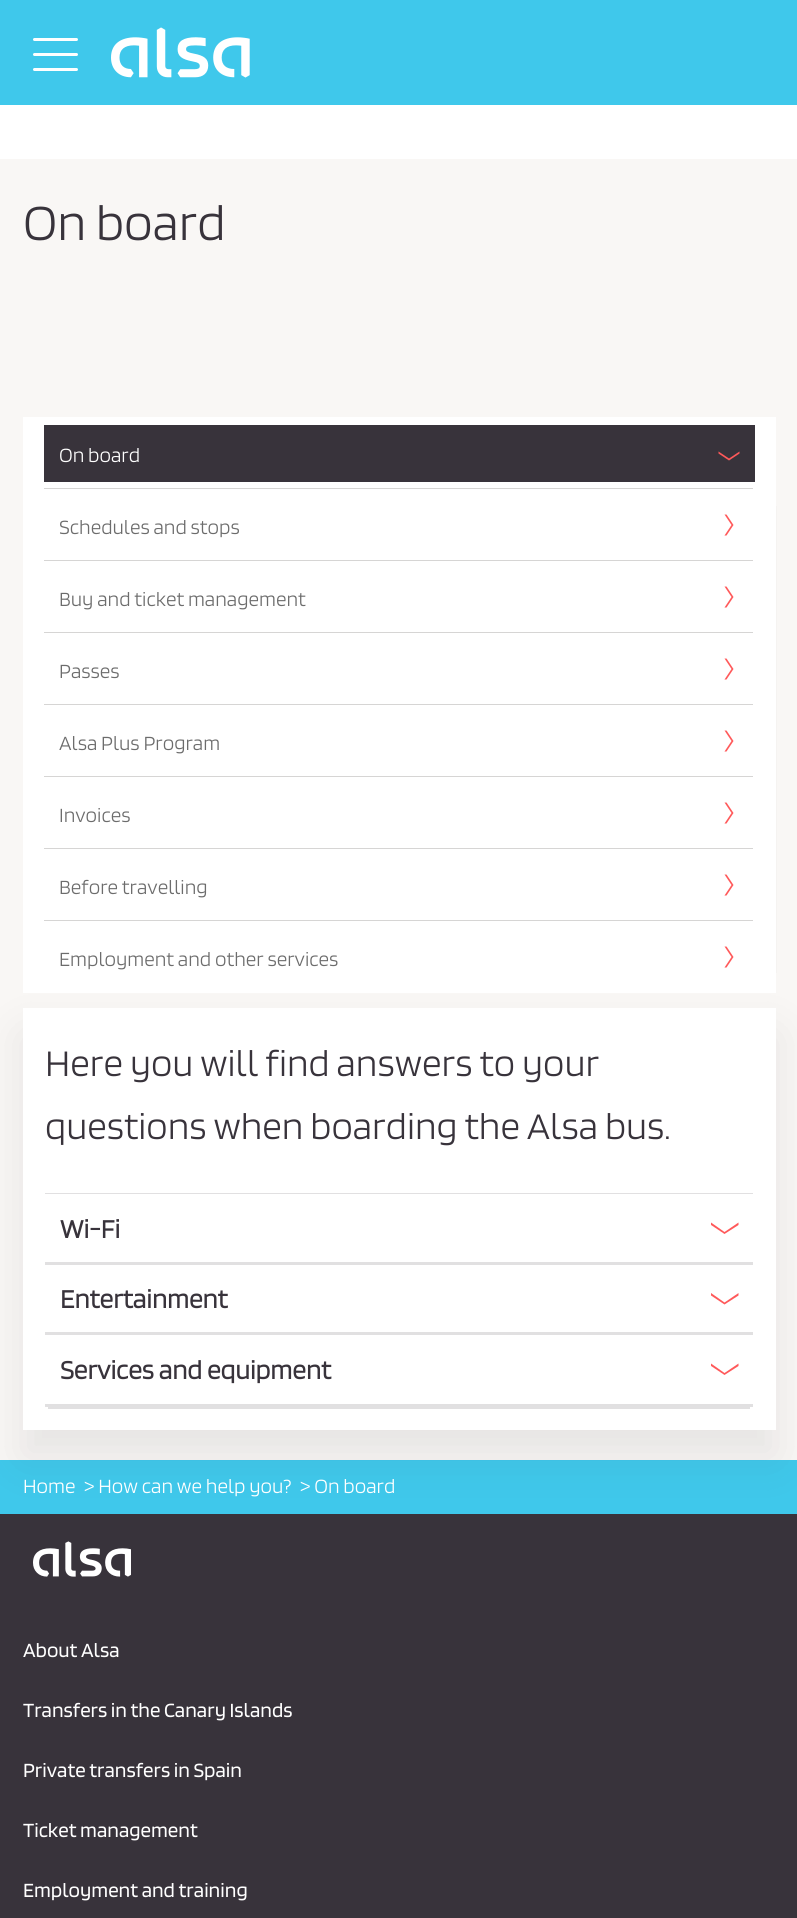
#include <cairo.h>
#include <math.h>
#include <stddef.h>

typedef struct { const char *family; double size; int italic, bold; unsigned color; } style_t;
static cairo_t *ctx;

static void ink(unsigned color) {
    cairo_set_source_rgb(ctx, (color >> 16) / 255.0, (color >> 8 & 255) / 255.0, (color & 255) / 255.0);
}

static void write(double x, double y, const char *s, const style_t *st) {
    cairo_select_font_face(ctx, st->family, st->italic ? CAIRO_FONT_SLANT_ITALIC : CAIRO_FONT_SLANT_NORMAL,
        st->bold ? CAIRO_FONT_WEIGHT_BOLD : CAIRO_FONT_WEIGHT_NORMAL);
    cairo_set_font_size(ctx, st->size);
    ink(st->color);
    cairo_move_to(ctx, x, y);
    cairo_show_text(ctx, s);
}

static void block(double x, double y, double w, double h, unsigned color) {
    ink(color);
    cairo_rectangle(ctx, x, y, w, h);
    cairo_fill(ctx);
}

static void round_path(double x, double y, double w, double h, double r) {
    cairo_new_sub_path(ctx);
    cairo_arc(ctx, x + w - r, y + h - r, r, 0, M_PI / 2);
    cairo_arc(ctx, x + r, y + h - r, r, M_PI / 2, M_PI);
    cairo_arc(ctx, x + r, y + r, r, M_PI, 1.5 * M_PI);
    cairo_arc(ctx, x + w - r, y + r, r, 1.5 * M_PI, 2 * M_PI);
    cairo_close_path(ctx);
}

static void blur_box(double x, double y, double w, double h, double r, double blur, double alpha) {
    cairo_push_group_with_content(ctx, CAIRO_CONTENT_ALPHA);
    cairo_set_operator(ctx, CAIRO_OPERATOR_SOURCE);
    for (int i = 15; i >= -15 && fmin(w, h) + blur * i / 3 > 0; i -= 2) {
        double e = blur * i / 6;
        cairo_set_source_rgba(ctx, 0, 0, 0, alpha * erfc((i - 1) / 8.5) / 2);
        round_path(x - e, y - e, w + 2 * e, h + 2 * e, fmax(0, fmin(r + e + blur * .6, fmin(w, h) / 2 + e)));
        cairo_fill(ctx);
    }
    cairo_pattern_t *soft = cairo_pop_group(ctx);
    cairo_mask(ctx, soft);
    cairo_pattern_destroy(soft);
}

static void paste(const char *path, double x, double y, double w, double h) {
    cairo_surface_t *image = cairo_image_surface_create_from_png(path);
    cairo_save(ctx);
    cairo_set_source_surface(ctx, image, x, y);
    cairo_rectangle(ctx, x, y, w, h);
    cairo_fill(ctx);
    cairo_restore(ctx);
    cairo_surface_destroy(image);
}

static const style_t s1 = {"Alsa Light", 52.5, 0, 0, 0x38333b};
static const style_t s2 = {"Alsa Light", 21, 0, 0, 0xffffff};
static const style_t s3 = {"Alsa Light", 21, 0, 0, 0x6c6c6c};
static const style_t s4 = {"Alsa Light", 39, 0, 0, 0x38333b};
static const style_t s5 = {"Alsa", 27.25, 0, 1, 0x38333b};
static const style_t s6 = {"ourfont", 98, 0, 0, 0xffffff};
static const style_t s7 = {"Alsa", 21, 0, 0, 0xffffff};

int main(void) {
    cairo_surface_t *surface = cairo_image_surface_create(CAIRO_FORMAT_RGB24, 797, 1918);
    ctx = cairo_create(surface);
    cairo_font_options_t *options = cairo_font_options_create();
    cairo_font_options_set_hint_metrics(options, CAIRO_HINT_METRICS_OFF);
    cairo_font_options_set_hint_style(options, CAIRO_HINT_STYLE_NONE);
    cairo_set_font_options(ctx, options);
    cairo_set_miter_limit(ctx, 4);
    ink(0xf9f7f5);
    cairo_paint(ctx);
    block(0, 105, 797, 54, 0xffffff);
    block(0, 0, 797, 105, 0x3fc8eb);
    ink(0xffffff);
    round_path(33, 38, 45, 3, 1.5);
    cairo_fill(ctx);
    round_path(33, 53, 45, 3, 1.5);
    cairo_fill(ctx);
    round_path(33, 68, 45, 3, 1.5);
    cairo_fill(ctx);
    paste("pic1.png", 111, 27, 139, 51);
    write(23, 240, "On board", &s1);
    cairo_save(ctx);
    cairo_rectangle(ctx, 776, 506, 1, 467);
    cairo_clip(ctx);
    ink(0x38333b);
    blur_box(41, 462, 717, 555, 0, 22.5, 0.1);
    cairo_restore(ctx);
    block(23, 417, 753, 576, 0xffffff);
    block(44, 425, 711, 57, 0x38333b);
    write(59, 462, "On board", &s2);
    ink(0xff595a);
    cairo_new_path(ctx);
    cairo_move_to(ctx, 739.5, 453.5);
    cairo_line_to(ctx, 729, 460.5);
    cairo_line_to(ctx, 718.5, 453.5);
    cairo_line_to(ctx, 718.5, 451.5);
    cairo_line_to(ctx, 729, 458.5);
    cairo_line_to(ctx, 739.5, 451.5);
    cairo_close_path(ctx);
    cairo_fill(ctx);
    block(44, 488, 709, 1, 0xd6d5d4);
    write(59, 534, "Schedules and stops", &s3);
    ink(0xff595a);
    cairo_new_path(ctx);
    cairo_move_to(ctx, 726.5, 535.5);
    cairo_line_to(ctx, 733.5, 525);
    cairo_line_to(ctx, 726.5, 514.5);
    cairo_line_to(ctx, 724.5, 514.5);
    cairo_line_to(ctx, 731.5, 525);
    cairo_line_to(ctx, 724.5, 535.5);
    cairo_close_path(ctx);
    cairo_fill(ctx);
    block(44, 560, 709, 1, 0xd6d5d4);
    write(59, 606, "Buy and ticket management", &s3);
    ink(0xff595a);
    cairo_new_path(ctx);
    cairo_move_to(ctx, 726.5, 607.5);
    cairo_line_to(ctx, 733.5, 597);
    cairo_line_to(ctx, 726.5, 586.5);
    cairo_line_to(ctx, 724.5, 586.5);
    cairo_line_to(ctx, 731.5, 597);
    cairo_line_to(ctx, 724.5, 607.5);
    cairo_close_path(ctx);
    cairo_fill(ctx);
    block(44, 632, 709, 1, 0xd6d5d4);
    write(59, 678, "Passes", &s3);
    ink(0xff595a);
    cairo_new_path(ctx);
    cairo_move_to(ctx, 726.5, 679.5);
    cairo_line_to(ctx, 733.5, 669);
    cairo_line_to(ctx, 726.5, 658.5);
    cairo_line_to(ctx, 724.5, 658.5);
    cairo_line_to(ctx, 731.5, 669);
    cairo_line_to(ctx, 724.5, 679.5);
    cairo_close_path(ctx);
    cairo_fill(ctx);
    block(44, 704, 709, 1, 0xd6d5d4);
    write(59, 750, "Alsa Plus Program", &s3);
    ink(0xff595a);
    cairo_new_path(ctx);
    cairo_move_to(ctx, 726.5, 751.5);
    cairo_line_to(ctx, 733.5, 741);
    cairo_line_to(ctx, 726.5, 730.5);
    cairo_line_to(ctx, 724.5, 730.5);
    cairo_line_to(ctx, 731.5, 741);
    cairo_line_to(ctx, 724.5, 751.5);
    cairo_close_path(ctx);
    cairo_fill(ctx);
    block(44, 776, 709, 1, 0xd6d5d4);
    write(59, 822, "Invoices", &s3);
    ink(0xff595a);
    cairo_new_path(ctx);
    cairo_move_to(ctx, 726.5, 823.5);
    cairo_line_to(ctx, 733.5, 813);
    cairo_line_to(ctx, 726.5, 802.5);
    cairo_line_to(ctx, 724.5, 802.5);
    cairo_line_to(ctx, 731.5, 813);
    cairo_line_to(ctx, 724.5, 823.5);
    cairo_close_path(ctx);
    cairo_fill(ctx);
    block(44, 848, 709, 1, 0xd6d5d4);
    write(59, 894, "Before travelling", &s3);
    ink(0xff595a);
    cairo_new_path(ctx);
    cairo_move_to(ctx, 726.5, 895.5);
    cairo_line_to(ctx, 733.5, 885);
    cairo_line_to(ctx, 726.5, 874.5);
    cairo_line_to(ctx, 724.5, 874.5);
    cairo_line_to(ctx, 731.5, 885);
    cairo_line_to(ctx, 724.5, 895.5);
    cairo_close_path(ctx);
    cairo_fill(ctx);
    block(44, 920, 709, 1, 0xd6d5d4);
    write(59, 966, "Employment and other services", &s3);
    ink(0xff595a);
    cairo_new_path(ctx);
    cairo_move_to(ctx, 726.5, 967.5);
    cairo_line_to(ctx, 733.5, 957);
    cairo_line_to(ctx, 726.5, 946.5);
    cairo_line_to(ctx, 724.5, 946.5);
    cairo_line_to(ctx, 731.5, 957);
    cairo_line_to(ctx, 724.5, 967.5);
    cairo_close_path(ctx);
    cairo_fill(ctx);
    block(0, 1460, 797, 54, 0x3fc8eb);
    block(0, 1514, 797, 404, 0x38333b);
    ink(0x38333b);
    blur_box(23, 1035, 753, 422, 0, 22.5, 0.1);
    block(23, 1008, 753, 422, 0xffffff);
    write(45, 1076, "Here you will find answers to your", &s4);
    write(45, 1139, "questions when boarding the Alsa bus.", &s4);
    block(45, 1193, 708, 1, 0xe1e0e1);
    block(45, 1262, 708, 3, 0xe1e0e1);
    write(60, 1238, "Wi-Fi", &s5);
    ink(0xff595a);
    cairo_new_path(ctx);
    cairo_move_to(ctx, 738.5, 1225);
    cairo_line_to(ctx, 724.5, 1234);
    cairo_line_to(ctx, 711, 1225);
    cairo_line_to(ctx, 711, 1222.5);
    cairo_line_to(ctx, 724.5, 1232);
    cairo_line_to(ctx, 738.5, 1222.5);
    cairo_close_path(ctx);
    cairo_fill(ctx);
    block(45, 1332, 708, 3, 0xe1e0e1);
    write(60, 1308, "Entertainment", &s5);
    ink(0xff595a);
    cairo_new_path(ctx);
    cairo_move_to(ctx, 738.5, 1295.5);
    cairo_line_to(ctx, 724.5, 1304.5);
    cairo_line_to(ctx, 711, 1295.5);
    cairo_line_to(ctx, 711, 1293);
    cairo_line_to(ctx, 724.5, 1302.5);
    cairo_line_to(ctx, 738.5, 1293);
    cairo_close_path(ctx);
    cairo_fill(ctx);
    block(48, 1407, 702, 2, 0xe1e0e1);
    block(45, 1404, 708, 3, 0xe1e0e1);
    write(60, 1379, "Services and equipment", &s5);
    ink(0xff595a);
    cairo_new_path(ctx);
    cairo_move_to(ctx, 738.5, 1366);
    cairo_line_to(ctx, 724.5, 1375);
    cairo_line_to(ctx, 711, 1366);
    cairo_line_to(ctx, 711, 1363.5);
    cairo_line_to(ctx, 724.5, 1373);
    cairo_line_to(ctx, 738.5, 1363.5);
    cairo_close_path(ctx);
    cairo_fill(ctx);
    write(23, 1493, "Home", &s2);
    write(84, 1493, "> How can we help you?", &s2);
    write(300, 1493, "> On board", &s2);
    write(33, 1608, "2", &s6);
    write(23, 1657, "About Alsa", &s7);
    write(23, 1717, "Transfers in the Canary Islands", &s7);
    write(23, 1777, "Private transfers in Spain", &s7);
    write(23, 1837, "Ticket management", &s7);
    write(23, 1897, "Employment and training", &s7);
    cairo_surface_write_to_png(surface, "screenshot.png");
    cairo_font_options_destroy(options);
    cairo_destroy(ctx);
    cairo_surface_destroy(surface);
    return 0;
}
